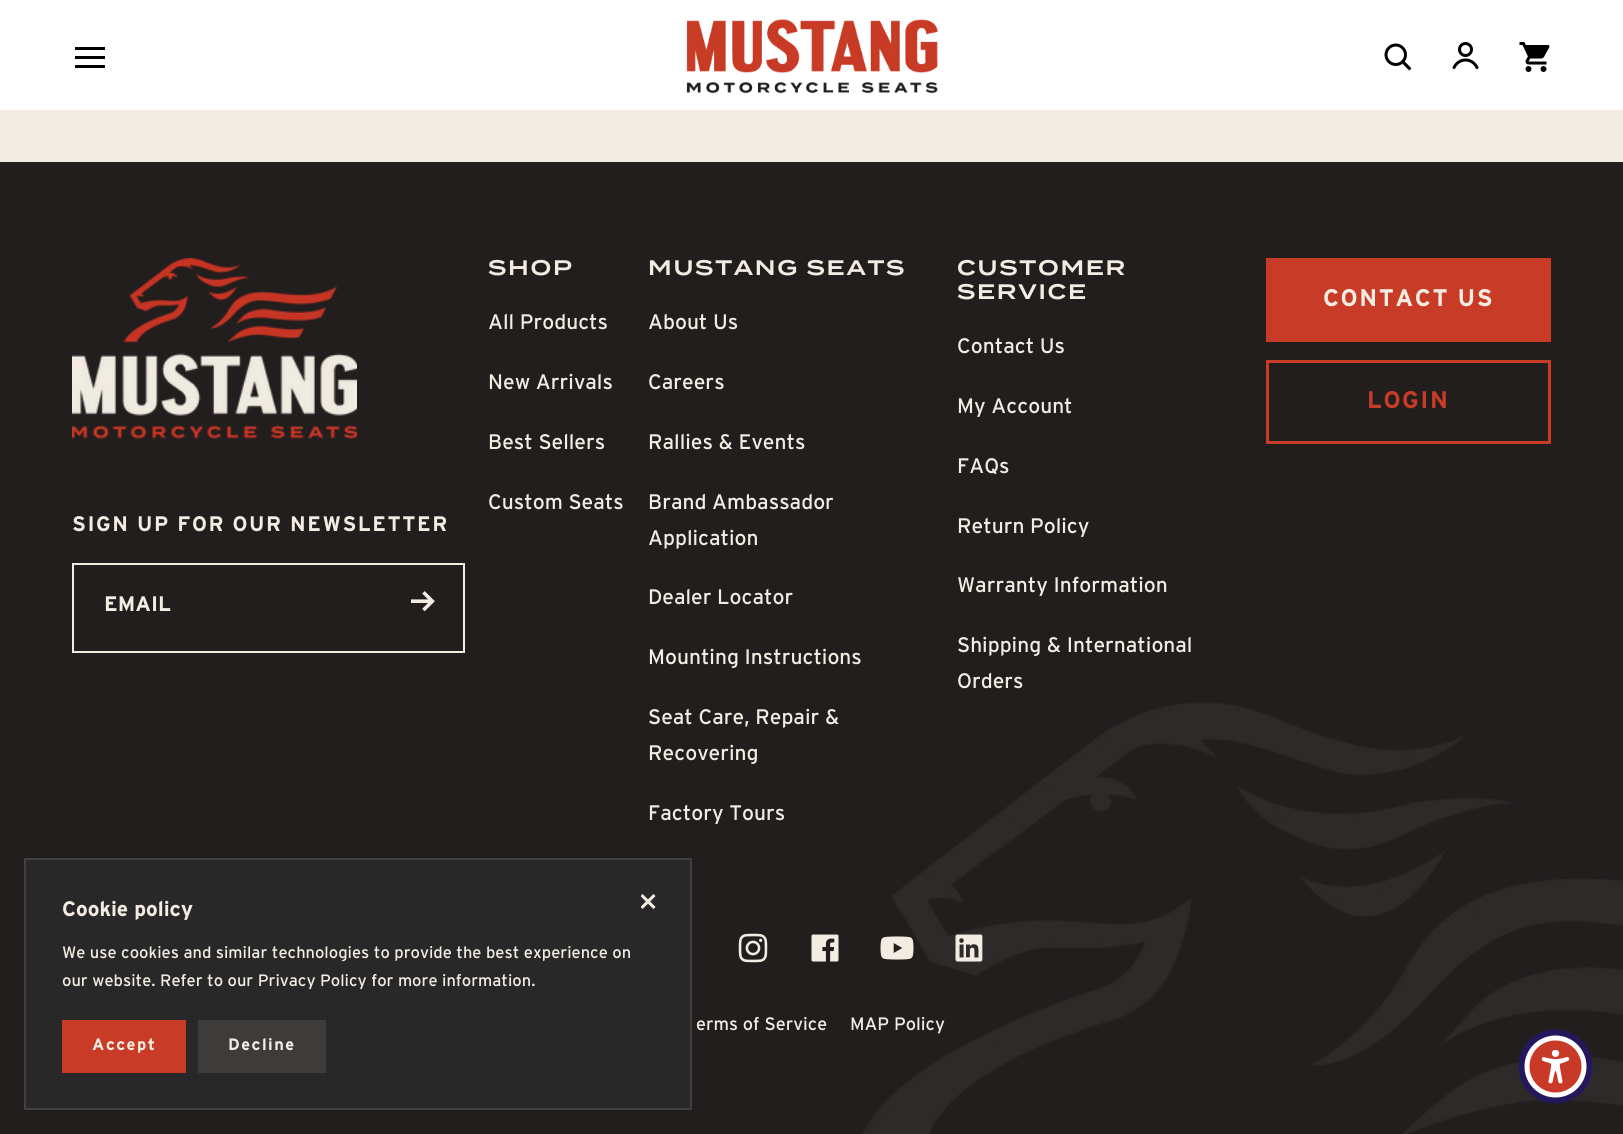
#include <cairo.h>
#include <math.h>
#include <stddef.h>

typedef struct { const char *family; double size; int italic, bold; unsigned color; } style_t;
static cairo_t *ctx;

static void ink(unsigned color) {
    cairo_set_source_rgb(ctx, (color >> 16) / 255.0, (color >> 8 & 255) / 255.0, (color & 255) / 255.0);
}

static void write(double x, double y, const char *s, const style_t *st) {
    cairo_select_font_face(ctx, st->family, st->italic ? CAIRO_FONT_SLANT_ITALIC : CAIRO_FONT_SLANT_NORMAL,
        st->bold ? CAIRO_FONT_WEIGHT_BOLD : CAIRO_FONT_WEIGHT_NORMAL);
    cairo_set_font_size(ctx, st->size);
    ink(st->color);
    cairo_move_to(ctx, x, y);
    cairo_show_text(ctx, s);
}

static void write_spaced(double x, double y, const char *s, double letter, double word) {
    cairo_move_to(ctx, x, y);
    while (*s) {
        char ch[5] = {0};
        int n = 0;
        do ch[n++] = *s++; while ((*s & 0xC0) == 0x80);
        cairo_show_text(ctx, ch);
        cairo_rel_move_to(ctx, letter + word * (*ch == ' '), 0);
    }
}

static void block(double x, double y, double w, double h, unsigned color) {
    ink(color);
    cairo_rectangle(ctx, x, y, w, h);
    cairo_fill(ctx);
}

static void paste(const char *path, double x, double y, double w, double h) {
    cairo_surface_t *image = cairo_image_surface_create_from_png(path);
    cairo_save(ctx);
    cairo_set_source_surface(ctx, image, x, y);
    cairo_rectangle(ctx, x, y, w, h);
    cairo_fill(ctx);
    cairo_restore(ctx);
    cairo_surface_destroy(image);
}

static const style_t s1 = {"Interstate", 21, 0, 0, 0xf2ece3};
static const style_t s2 = {"Interstate", 21, 0, 1, 0xf2ece3};
static const style_t s3 = {"Interstate", 18, 0, 0, 0xf2ece3};
static const style_t s4 = {"Interstate", 16.5, 0, 0, 0xf2ece3};

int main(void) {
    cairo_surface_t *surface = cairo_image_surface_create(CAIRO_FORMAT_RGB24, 1623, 1134);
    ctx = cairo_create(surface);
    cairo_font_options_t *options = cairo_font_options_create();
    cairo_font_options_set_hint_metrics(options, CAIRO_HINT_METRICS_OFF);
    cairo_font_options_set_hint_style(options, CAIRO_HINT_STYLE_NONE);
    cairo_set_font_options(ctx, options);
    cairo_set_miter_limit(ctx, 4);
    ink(0xf2ece3);
    cairo_paint(ctx);
    block(0, 0, 1623, 110, 0xffffff);
    block(75, 47, 30, 3, 0x000000);
    block(75, 65, 30, 3, 0x000000);
    block(75, 56, 30, 3, 0x000000);
    paste("pic1.png", 686, 19, 252, 75);
    paste("pic2.png", 1384, 43, 28, 28);
    cairo_arc(ctx, 1465.5, 49.5, 6, 0, 2 * M_PI);
    cairo_set_line_width(ctx, 3);
    cairo_stroke(ctx);
    cairo_new_path(ctx);
    cairo_move_to(ctx, 1454, 67.5);
    cairo_curve_to(ctx, 1459, 57.5, 1472, 57.5, 1477, 67.5);
    cairo_set_line_cap(ctx, CAIRO_LINE_CAP_ROUND);
    cairo_stroke(ctx);
    paste("pic3.png", 1519, 42, 31, 30);
    block(0, 162, 1623, 972, 0x221e1e);
    cairo_select_font_face(ctx, "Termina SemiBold", CAIRO_FONT_SLANT_NORMAL, CAIRO_FONT_WEIGHT_NORMAL);
    cairo_set_font_size(ctx, 21);
    ink(0xf2ece3);
    write_spaced(488, 275, "SHOP", 1.75, 0);
    write(488, 329, "All Products", &s1);
    write(488, 389, "New Arrivals", &s1);
    write(488, 449, "Best Sellers", &s1);
    write(488, 509, "Custom Seats", &s1);
    cairo_select_font_face(ctx, "Termina SemiBold", CAIRO_FONT_SLANT_NORMAL, CAIRO_FONT_WEIGHT_NORMAL);
    write_spaced(648, 275, "MUSTANG SEATS", 1.75, 0);
    write(648, 329, "About Us", &s1);
    write(648, 389, "Careers", &s1);
    write(648, 449, "Rallies & Events", &s1);
    write(648, 509, "Brand Ambassador", &s1);
    write(648, 545, "Application", &s1);
    write(648, 604, "Dealer Locator", &s1);
    write(648, 664, "Mounting Instructions", &s1);
    write(648, 724, "Seat Care, Repair &", &s1);
    write(648, 760, "Recovering", &s1);
    write(648, 820, "Factory Tours", &s1);
    cairo_select_font_face(ctx, "Termina SemiBold", CAIRO_FONT_SLANT_NORMAL, CAIRO_FONT_WEIGHT_NORMAL);
    write_spaced(957, 275, "CUSTOMER", 1.75, 0);
    write_spaced(957, 299, "SERVICE", 1.75, 0);
    write(957, 353, "Contact Us", &s1);
    write(957, 413, "My Account", &s1);
    write(957, 473, "FAQs", &s1);
    write(957, 533, "Return Policy", &s1);
    write(957, 592, "Warranty Information", &s1);
    write(957, 652, "Shipping & International", &s1);
    write(957, 688, "Orders", &s1);
    block(1266, 258, 285, 84, 0xc83b27);
    cairo_select_font_face(ctx, "Interstate", CAIRO_FONT_SLANT_NORMAL, CAIRO_FONT_WEIGHT_BOLD);
    cairo_set_font_size(ctx, 24);
    ink(0xf2ece3);
    write_spaced(1323, 306, "CONTACT US", 1.5, 0);
    cairo_rectangle(ctx, 1267.5, 361.5, 282, 81);
    ink(0xc83b27);
    cairo_set_line_cap(ctx, CAIRO_LINE_CAP_BUTT);
    cairo_stroke(ctx);
    write_spaced(1367, 408, "LOGIN", 1.5, 0);
    paste("pic4.png", 72, 258, 285, 181);
    cairo_set_font_size(ctx, 21);
    ink(0xf2ece3);
    write_spaced(72, 531, "SIGN UP FOR OUR NEWSLETTER", 1.5, 0);
    cairo_rectangle(ctx, 73, 564, 391, 88);
    cairo_set_line_width(ctx, 2);
    cairo_stroke(ctx);
    write(104, 611, "EMAIL", &s2);
    paste("pic5.png", 411, 591, 24, 21);
    paste("pic6.png", 738, 933, 30, 30);
    paste("pic7.png", 811, 934, 28, 28);
    paste("pic10.png", 863, 702, 760, 432);
    paste("pic8.png", 880, 936, 34, 24);
    paste("pic9.png", 955, 934, 28, 28);
    write(696, 1030, "erms of Service", &s3);
    write(850, 1030, "MAP Policy", &s3);
    ink(0x292828);
    cairo_rectangle(ctx, 25, 859, 666, 250);
    cairo_fill_preserve(ctx);
    ink(0x41403e);
    cairo_stroke(ctx);
    write(62, 916, "Cookie policy", &s2);
    write(62, 958, "We use cookies and similar technologies to provide the best experience on", &s4);
    write(62, 986, "our website. Refer to our Privacy Policy for more information.", &s4);
    block(62, 1020, 124, 53, 0xc83b27);
    cairo_select_font_face(ctx, "Interstate", CAIRO_FONT_SLANT_NORMAL, CAIRO_FONT_WEIGHT_BOLD);
    ink(0xf2ece3);
    write_spaced(92, 1050, "Accept", 1.5, 0);
    block(198, 1020, 128, 53, 0x3d3c3b);
    ink(0xf2ece3);
    write_spaced(228, 1050, "Decline", 1.5, 0);
    cairo_save(ctx);
    cairo_rectangle(ctx, 641, 894, 15, 15);
    cairo_clip(ctx);
    cairo_new_path(ctx);
    cairo_move_to(ctx, 641.5, 895);
    cairo_line_to(ctx, 654.5, 908);
    cairo_move_to(ctx, 641.5, 908);
    cairo_line_to(ctx, 654.5, 895);
    cairo_set_line_width(ctx, 3);
    cairo_stroke(ctx);
    cairo_restore(ctx);
    ink(0x23185c);
    cairo_arc(ctx, 1555.5, 1066.5, 37, 0, 2 * M_PI);
    cairo_fill(ctx);
    ink(0xffffff);
    cairo_arc(ctx, 1555.5, 1066.5, 31, 0, 2 * M_PI);
    cairo_fill(ctx);
    ink(0xc83a27);
    cairo_arc(ctx, 1555.5, 1066.5, 26, 0, 2 * M_PI);
    cairo_fill(ctx);
    paste("pic11.png", 1541, 1050, 29, 34);
    cairo_surface_write_to_png(surface, "screenshot.png");
    cairo_font_options_destroy(options);
    cairo_destroy(ctx);
    cairo_surface_destroy(surface);
    return 0;
}
